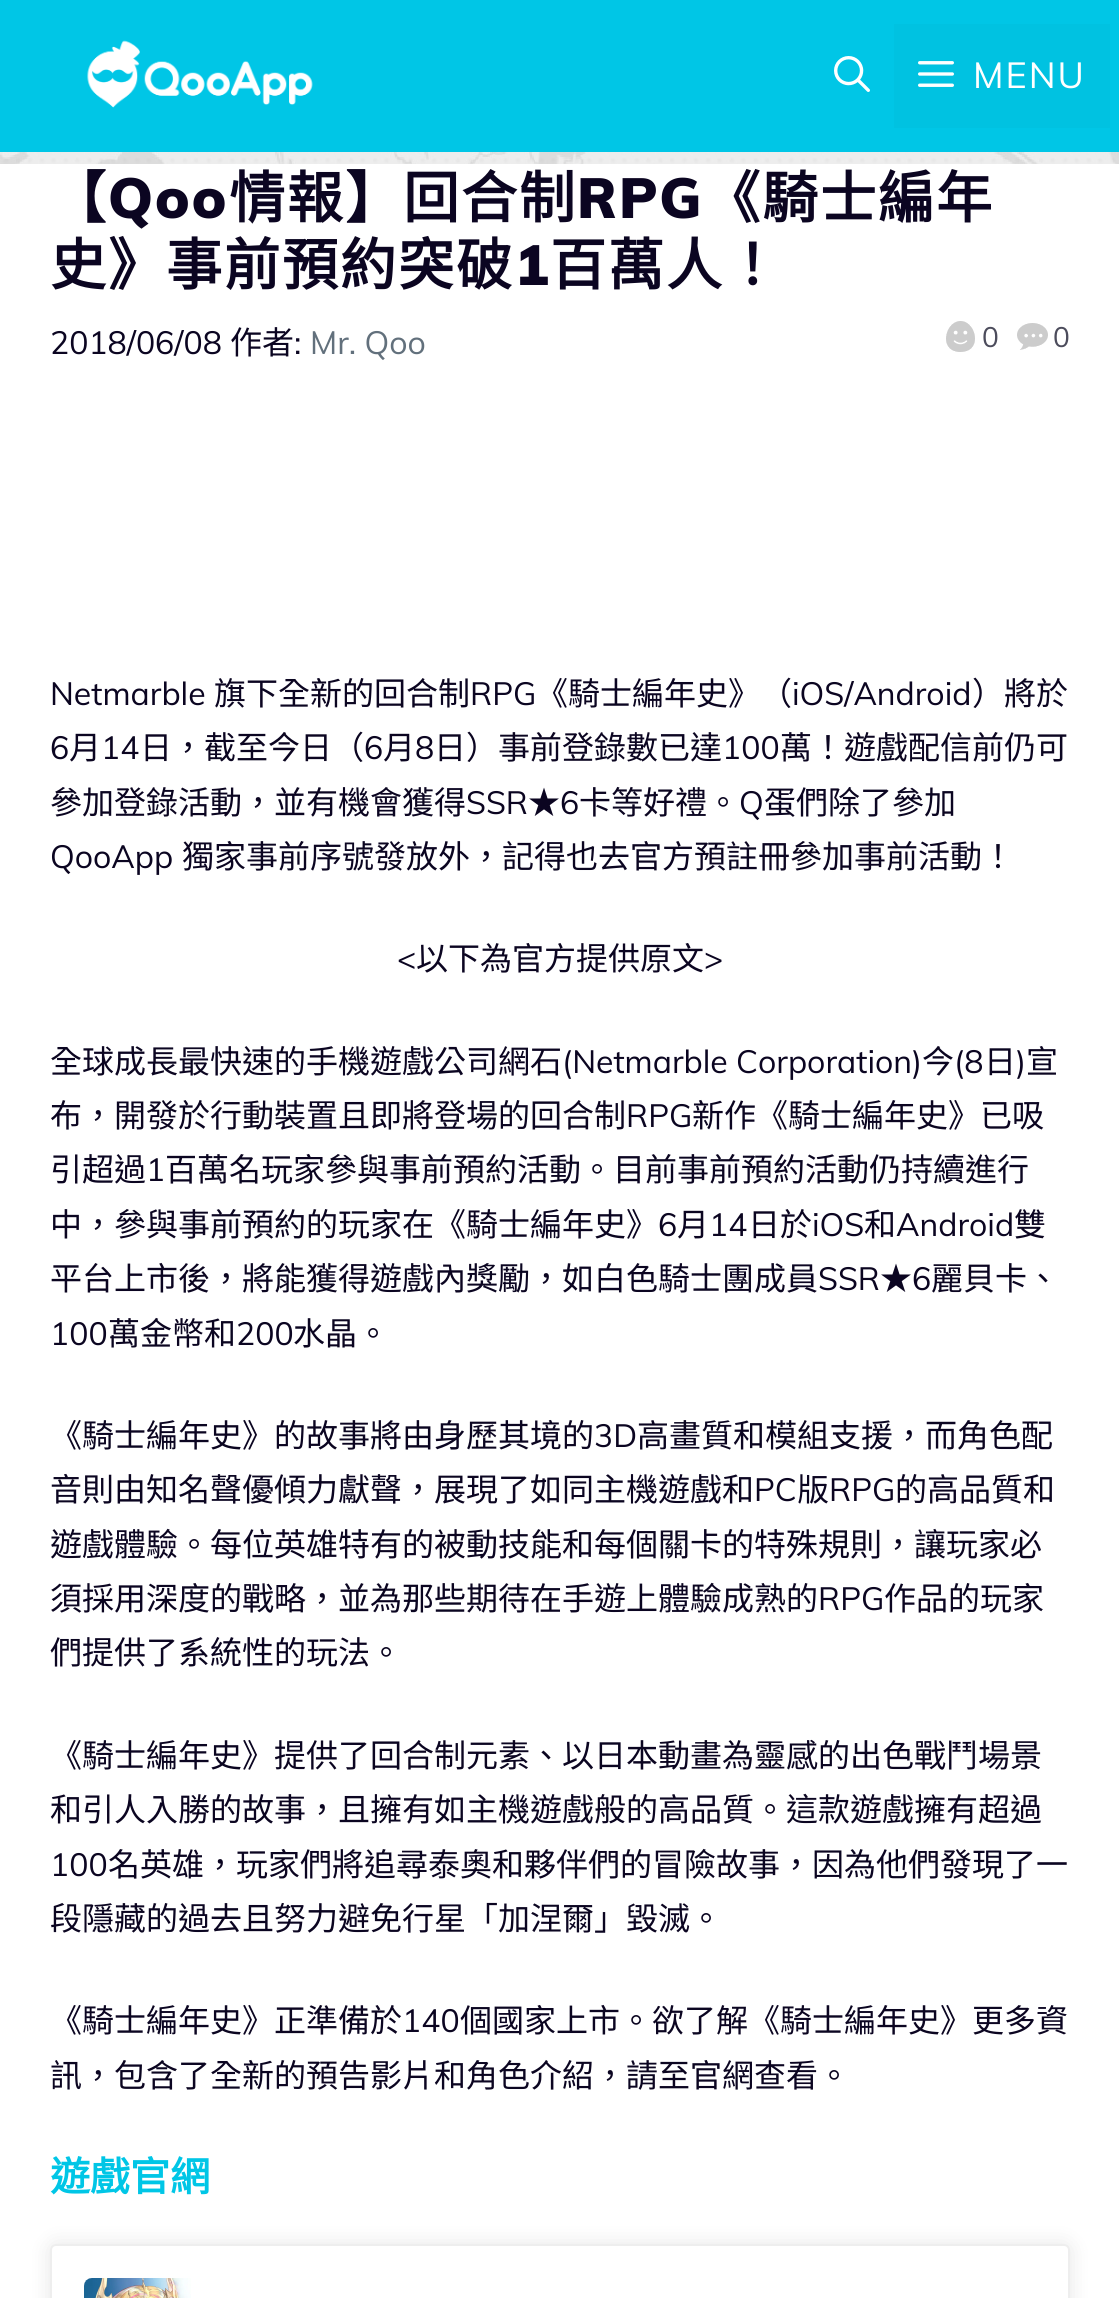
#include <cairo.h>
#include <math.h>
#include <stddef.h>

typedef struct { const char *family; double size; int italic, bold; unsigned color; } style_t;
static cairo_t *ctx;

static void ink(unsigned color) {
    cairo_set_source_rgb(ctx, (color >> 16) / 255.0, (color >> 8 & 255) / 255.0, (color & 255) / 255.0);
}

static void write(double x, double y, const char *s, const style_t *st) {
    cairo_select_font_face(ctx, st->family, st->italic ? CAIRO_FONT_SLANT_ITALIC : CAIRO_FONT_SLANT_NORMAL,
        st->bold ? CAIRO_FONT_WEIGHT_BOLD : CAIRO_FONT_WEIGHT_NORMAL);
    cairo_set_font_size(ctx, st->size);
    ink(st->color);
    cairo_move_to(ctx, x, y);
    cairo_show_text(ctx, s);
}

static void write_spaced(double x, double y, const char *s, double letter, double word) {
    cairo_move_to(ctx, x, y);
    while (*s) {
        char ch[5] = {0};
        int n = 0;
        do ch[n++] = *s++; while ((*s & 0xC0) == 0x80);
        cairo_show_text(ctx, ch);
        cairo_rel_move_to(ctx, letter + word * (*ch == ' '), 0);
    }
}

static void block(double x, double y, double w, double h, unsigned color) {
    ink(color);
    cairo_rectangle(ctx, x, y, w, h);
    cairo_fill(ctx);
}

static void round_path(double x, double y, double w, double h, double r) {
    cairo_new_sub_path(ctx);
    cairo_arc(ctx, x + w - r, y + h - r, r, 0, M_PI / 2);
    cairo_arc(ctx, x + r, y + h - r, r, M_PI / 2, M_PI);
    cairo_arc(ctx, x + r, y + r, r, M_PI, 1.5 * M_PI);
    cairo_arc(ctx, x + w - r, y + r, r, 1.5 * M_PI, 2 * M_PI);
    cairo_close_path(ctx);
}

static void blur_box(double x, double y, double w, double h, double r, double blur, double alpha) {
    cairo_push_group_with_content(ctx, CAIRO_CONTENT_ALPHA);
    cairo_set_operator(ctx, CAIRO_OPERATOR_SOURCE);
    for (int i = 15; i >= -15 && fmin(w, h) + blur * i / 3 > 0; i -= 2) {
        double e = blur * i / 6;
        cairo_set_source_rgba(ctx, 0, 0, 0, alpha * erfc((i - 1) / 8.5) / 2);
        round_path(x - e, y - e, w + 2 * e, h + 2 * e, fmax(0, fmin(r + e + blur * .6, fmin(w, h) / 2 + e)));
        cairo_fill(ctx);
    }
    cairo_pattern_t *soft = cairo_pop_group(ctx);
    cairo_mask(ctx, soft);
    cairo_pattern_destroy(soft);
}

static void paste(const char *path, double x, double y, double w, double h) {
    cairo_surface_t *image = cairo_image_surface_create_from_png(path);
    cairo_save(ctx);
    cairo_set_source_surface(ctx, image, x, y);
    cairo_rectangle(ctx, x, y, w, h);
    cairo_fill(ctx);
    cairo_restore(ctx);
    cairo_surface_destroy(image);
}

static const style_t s1 = {"Muli", 32, 0, 0, 0x0b0521};
static const style_t s2 = {"Noto Sans CJK TC", 32, 0, 0, 0x0b0521};
static const style_t s3 = {"Muli", 32, 0, 0, 0x62707c};
static const style_t s4 = {"Muli", 28, 0, 0, 0x4c4c5c};
static const style_t s5 = {"Noto Sans CJK TC", 40, 0, 1, 0x00c6e6};

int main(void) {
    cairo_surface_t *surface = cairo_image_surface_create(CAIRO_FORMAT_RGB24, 1119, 2298);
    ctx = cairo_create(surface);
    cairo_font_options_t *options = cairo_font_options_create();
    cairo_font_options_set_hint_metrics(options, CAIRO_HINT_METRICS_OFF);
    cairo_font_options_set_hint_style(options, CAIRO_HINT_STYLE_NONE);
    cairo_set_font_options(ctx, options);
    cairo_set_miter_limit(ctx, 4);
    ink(0xffffff);
    cairo_paint(ctx);
    paste("pic1.png", 0, 152, 1119, 12);
    block(0, 0, 1119, 152, 0x00c6e6);
    paste("pic2.png", 87, 40, 226, 68);
    paste("pic3.png", 834, 56, 36, 36);
    block(894, 24, 216, 104, 0x00c2e1);
    paste("pic4.png", 918, 61, 36, 26);
    cairo_select_font_face(ctx, "Muli", CAIRO_FONT_SLANT_NORMAL, CAIRO_FONT_WEIGHT_NORMAL);
    cairo_set_font_size(ctx, 36);
    ink(0xffffff);
    write_spaced(973, 88, "MENU", 2, 0);
    cairo_select_font_face(ctx, "Noto Sans CJK TC", CAIRO_FONT_SLANT_NORMAL, CAIRO_FONT_WEIGHT_BOLD);
    cairo_set_font_size(ctx, 56);
    ink(0x0b0521);
    write_spaced(50, 218, "【", 2, 0);
    cairo_select_font_face(ctx, "Muli Black", CAIRO_FONT_SLANT_NORMAL, CAIRO_FONT_WEIGHT_NORMAL);
    write_spaced(108, 218, "Qoo", 2, 0);
    cairo_select_font_face(ctx, "Noto Sans CJK TC", CAIRO_FONT_SLANT_NORMAL, CAIRO_FONT_WEIGHT_BOLD);
    write_spaced(229, 218, "情報】回合制", 2, 0);
    cairo_select_font_face(ctx, "Muli Black", CAIRO_FONT_SLANT_NORMAL, CAIRO_FONT_WEIGHT_NORMAL);
    write_spaced(577, 218, "RPG", 2, 0);
    cairo_select_font_face(ctx, "Noto Sans CJK TC", CAIRO_FONT_SLANT_NORMAL, CAIRO_FONT_WEIGHT_BOLD);
    write_spaced(704, 218, "《騎士編年", 2, 0);
    write_spaced(50, 285, "史》事前預約突破", 2, 0);
    cairo_select_font_face(ctx, "Muli Black", CAIRO_FONT_SLANT_NORMAL, CAIRO_FONT_WEIGHT_NORMAL);
    write_spaced(515, 285, "1", 2, 0);
    cairo_select_font_face(ctx, "Noto Sans CJK TC", CAIRO_FONT_SLANT_NORMAL, CAIRO_FONT_WEIGHT_BOLD);
    write_spaced(550, 285, "百萬人！", 2, 0);
    write(50, 354, "2018/06/08", &s1);
    write(230, 354, "作者", &s2);
    write(294, 354, ":", &s1);
    write(310, 354, "Mr. Qoo", &s3);
    paste("pic5.png", 946, 321, 29, 31);
    write(982, 347, "0", &s4);
    paste("pic6.png", 1017, 323, 31, 27);
    write(1053, 347, "0", &s4);
    write(50, 705, "Netmarble", &s1);
    write(214, 705, "旗下全新的回合制", &s2);
    write(470, 705, "RPG", &s1);
    write(536, 705, "《騎士編年史》（", &s2);
    write(792, 705, "iOS/Android", &s1);
    write(972, 705, "）將於", &s2);
    write(50, 759, "6", &s1);
    write(69, 759, "月", &s2);
    write(101, 759, "14", &s1);
    write(140, 759, "日，截至今日（", &s2);
    write(364, 759, "6", &s1);
    write(383, 759, "月", &s2);
    write(415, 759, "8", &s1);
    write(434, 759, "日）事前登錄數已達", &s2);
    write(722, 759, "100", &s1);
    write(780, 759, "萬！遊戲配信前仍可", &s2);
    write(50, 814, "參加登錄活動，並有機會獲得", &s2);
    write(466, 814, "SSR", &s1);
    write(528, 814, "★", &s2);
    write(560, 814, "6", &s1);
    write(579, 814, "卡等好禮。", &s2);
    write(739, 814, "Q", &s1);
    write(764, 814, "蛋們除了參加", &s2);
    write(50, 868, "QooApp", &s1);
    write(182, 868, "獨家事前序號發放外，記得也去官方預註冊參加事前活動！", &s2);
    write(397, 970, "<", &s1);
    write(416, 970, "以下為官方提供原文", &s2);
    write(704, 970, ">", &s1);
    write(50, 1073, "全球成長最快速的手機遊戲公司網石", &s2);
    write(562, 1073, "(Netmarble Corporation)", &s1);
    write(922, 1073, "今", &s2);
    write(954, 1073, "(8", &s1);
    write(984, 1073, "日", &s2);
    write(1016, 1073, ")", &s1);
    write(1026, 1073, "宣", &s2);
    write(50, 1127, "布，開發於行動裝置且即將登場的回合制", &s2);
    write(626, 1127, "RPG", &s1);
    write(692, 1127, "新作《騎士編年史》已吸", &s2);
    write(50, 1181, "引超過", &s2);
    write(146, 1181, "1", &s1);
    write(165, 1181, "百萬名玩家參與事前預約活動。目前事前預約活動仍持續進行", &s2);
    write(50, 1236, "中，參與事前預約的玩家在《騎士編年史》", &s2);
    write(658, 1236, "6", &s1);
    write(677, 1236, "月", &s2);
    write(709, 1236, "14", &s1);
    write(748, 1236, "日於", &s2);
    write(812, 1236, "iOS", &s1);
    write(864, 1236, "和", &s2);
    write(896, 1236, "Android", &s1);
    write(1014, 1236, "雙", &s2);
    write(50, 1290, "平台上市後，將能獲得遊戲內獎勵，如白色騎士團成員", &s2);
    write(818, 1290, "SSR", &s1);
    write(880, 1290, "★", &s2);
    write(912, 1290, "6", &s1);
    write(931, 1290, "麗貝卡、", &s2);
    write(50, 1345, "100", &s1);
    write(108, 1345, "萬金幣和", &s2);
    write(236, 1345, "200", &s1);
    write(293, 1345, "水晶。", &s2);
    write(50, 1447, "《騎士編年史》的故事將由身歷其境的", &s2);
    write(594, 1447, "3D", &s1);
    write(637, 1447, "高畫質和模組支援，而角色配", &s2);
    write(50, 1501, "音則由知名聲優傾力獻聲，展現了如同主機遊戲和", &s2);
    write(754, 1501, "PC", &s1);
    write(797, 1501, "版", &s2);
    write(829, 1501, "RPG", &s1);
    write(895, 1501, "的高品質和", &s2);
    write(50, 1556, "遊戲體驗。每位英雄特有的被動技能和每個關卡的特殊規則，讓玩家必", &s2);
    write(50, 1610, "須採用深度的戰略，並為那些期待在手遊上體驗成熟的", &s2);
    write(818, 1610, "RPG", &s1);
    write(884, 1610, "作品的玩家", &s2);
    write(50, 1664, "們提供了系統性的玩法。", &s2);
    write(50, 1767, "《騎士編年史》提供了回合制元素、以日本動畫為靈感的出色戰鬥場景", &s2);
    write(50, 1821, "和引人入勝的故事，且擁有如主機遊戲般的高品質。這款遊戲擁有超過", &s2);
    write(50, 1876, "100", &s1);
    write(108, 1876, "名英雄，玩家們將追尋泰奧和夥伴們的冒險故事，因為他們發現了一", &s2);
    write(50, 1930, "段隱藏的過去且努力避免行星「加涅爾」毀滅。", &s2);
    write(50, 2032, "《騎士編年史》正準備於", &s2);
    write(402, 2032, "140", &s1);
    write(460, 2032, "個國家上市。欲了解《騎士編年史》更多資", &s2);
    write(50, 2087, "訊，包含了全新的預告影片和角色介紹，請至官網查看。", &s2);
    write(50, 2191, "遊戲官網", &s5);
    ink(0x000000);
    blur_box(50, 2244, 1020, 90, 6, 10, 0.1);
    ink(0xffffff);
    round_path(51, 2245, 1018, 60, 5);
    cairo_fill_preserve(ctx);
    ink(0xeeeeee);
    cairo_stroke(ctx);
    paste("pic7.png", 84, 2278, 107, 20);
    cairo_surface_write_to_png(surface, "screenshot.png");
    cairo_font_options_destroy(options);
    cairo_destroy(ctx);
    cairo_surface_destroy(surface);
    return 0;
}
